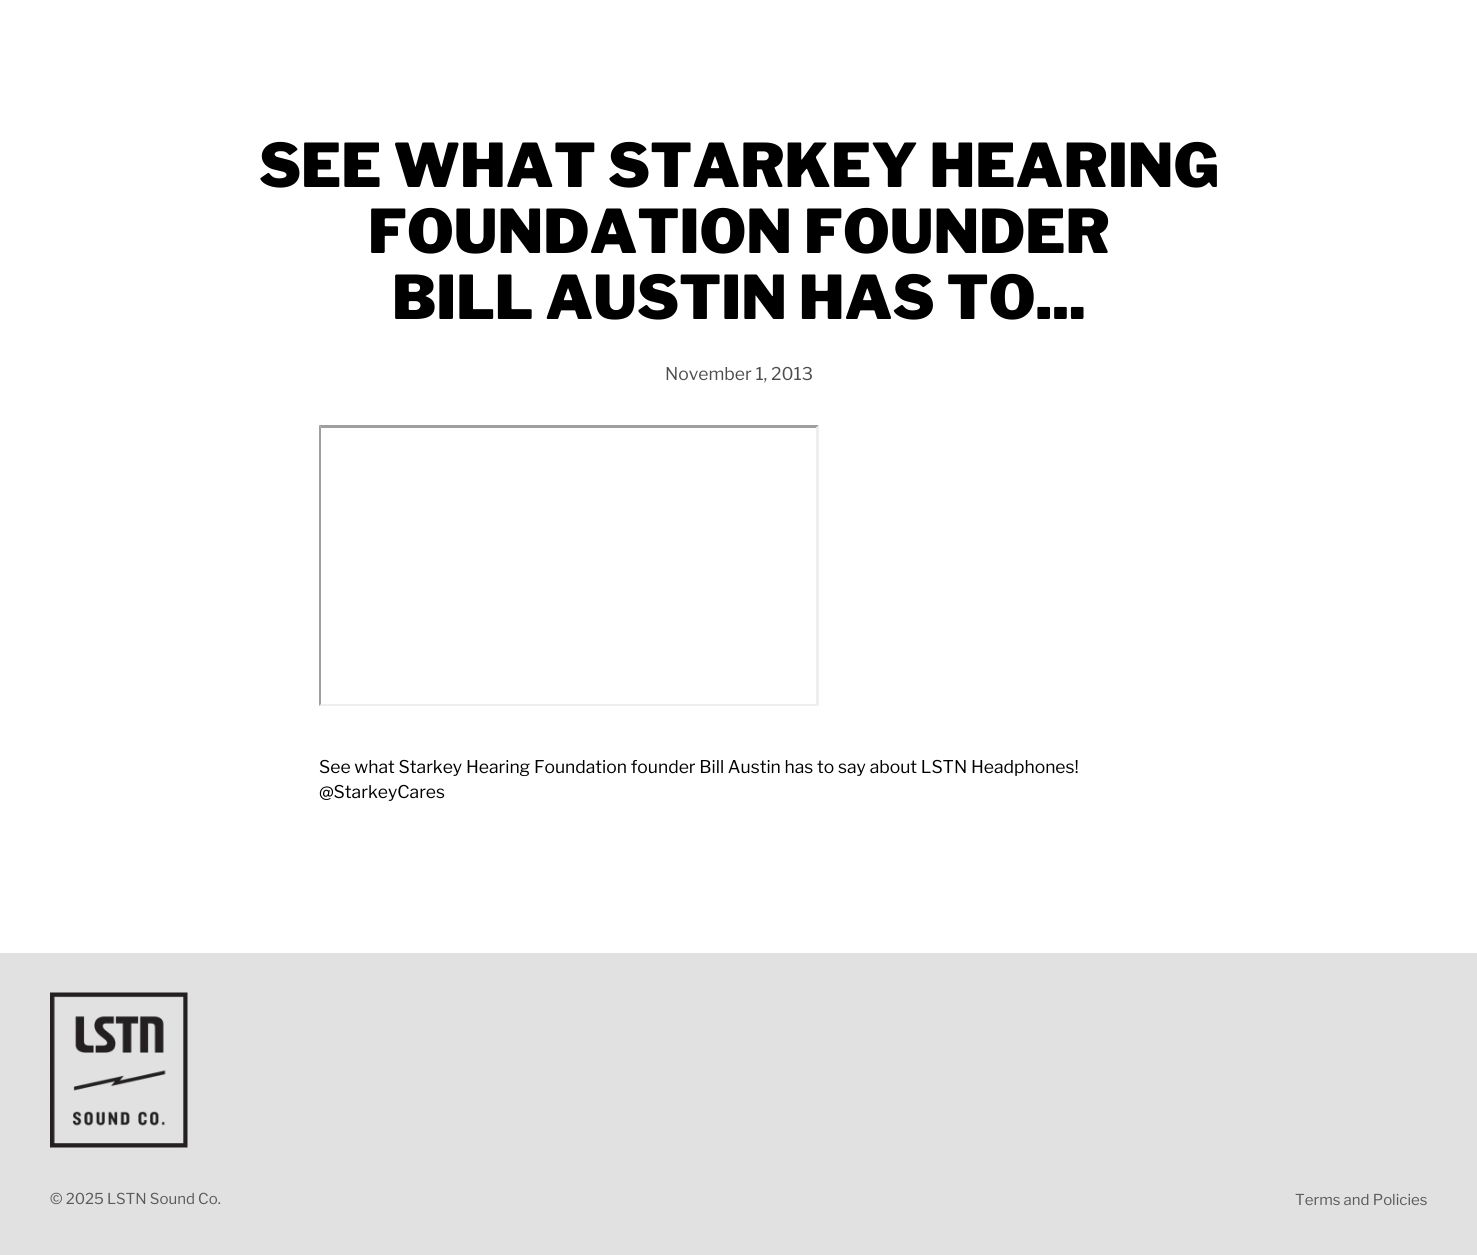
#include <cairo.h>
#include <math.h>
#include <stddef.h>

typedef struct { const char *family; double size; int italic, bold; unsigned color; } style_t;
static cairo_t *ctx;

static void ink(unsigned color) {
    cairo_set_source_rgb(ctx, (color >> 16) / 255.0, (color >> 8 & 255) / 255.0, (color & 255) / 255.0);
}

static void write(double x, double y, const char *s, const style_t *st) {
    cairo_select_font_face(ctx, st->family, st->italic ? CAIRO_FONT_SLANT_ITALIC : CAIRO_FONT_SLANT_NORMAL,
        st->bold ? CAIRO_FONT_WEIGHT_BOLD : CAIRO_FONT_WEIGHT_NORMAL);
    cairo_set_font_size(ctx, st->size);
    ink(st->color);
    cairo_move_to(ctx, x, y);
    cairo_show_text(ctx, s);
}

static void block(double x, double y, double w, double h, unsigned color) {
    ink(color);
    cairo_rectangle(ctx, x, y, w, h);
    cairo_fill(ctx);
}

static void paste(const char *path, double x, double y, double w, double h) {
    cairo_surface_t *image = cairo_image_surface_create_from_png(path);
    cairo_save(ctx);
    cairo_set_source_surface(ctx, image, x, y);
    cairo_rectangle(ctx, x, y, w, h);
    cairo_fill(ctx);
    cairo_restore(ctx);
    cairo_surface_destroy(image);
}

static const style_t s1 = {"Libre Franklin Black", 60, 0, 0, 0x000000};
static const style_t s2 = {"Libre Franklin", 17.5, 0, 0, 0x4d4d4d};
static const style_t s3 = {"Libre Franklin", 17.5, 0, 0, 0x000000};
static const style_t s4 = {"Libre Franklin", 15, 0, 0, 0x5a5a5a};

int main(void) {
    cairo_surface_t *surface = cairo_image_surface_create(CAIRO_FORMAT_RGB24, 1477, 1255);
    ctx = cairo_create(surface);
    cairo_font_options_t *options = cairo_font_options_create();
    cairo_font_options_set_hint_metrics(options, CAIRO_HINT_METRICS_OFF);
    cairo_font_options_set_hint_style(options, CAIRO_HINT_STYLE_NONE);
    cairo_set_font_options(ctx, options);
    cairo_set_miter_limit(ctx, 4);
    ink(0xffffff);
    cairo_paint(ctx);
    write(259, 187, "SEE WHAT STARKEY HEARING", &s1);
    write(368, 253, "FOUNDATION FOUNDER", &s1);
    write(392, 319, "BILL AUSTIN HAS TO...", &s1);
    write(665, 380, "November 1, 2013", &s2);
    ink(0x9f9f9f);
    cairo_new_path(ctx);
    cairo_move_to(ctx, 319, 425);
    cairo_line_to(ctx, 819, 425);
    cairo_line_to(ctx, 816, 428);
    cairo_line_to(ctx, 321, 428);
    cairo_close_path(ctx);
    cairo_fill(ctx);
    ink(0xeeeeee);
    cairo_new_path(ctx);
    cairo_move_to(ctx, 819, 425);
    cairo_line_to(ctx, 819, 706);
    cairo_line_to(ctx, 816, 704);
    cairo_line_to(ctx, 816, 428);
    cairo_close_path(ctx);
    cairo_fill(ctx);
    cairo_new_path(ctx);
    cairo_move_to(ctx, 819, 706);
    cairo_line_to(ctx, 319, 706);
    cairo_line_to(ctx, 321, 704);
    cairo_line_to(ctx, 816, 704);
    cairo_close_path(ctx);
    cairo_fill(ctx);
    ink(0x9f9f9f);
    cairo_new_path(ctx);
    cairo_move_to(ctx, 319, 706);
    cairo_line_to(ctx, 319, 425);
    cairo_line_to(ctx, 321, 428);
    cairo_line_to(ctx, 321, 704);
    cairo_close_path(ctx);
    cairo_fill(ctx);
    write(319, 773, "See what Starkey Hearing Foundation founder Bill Austin has to say about LSTN Headphones!", &s3);
    write(319, 798, "@StarkeyCares", &s3);
    block(0, 953, 1477, 302, 0xe1e1e1);
    paste("pic1.png", 50, 992, 138, 156);
    write(50, 1204, "© 2025 LSTN Sound Co.", &s4);
    write(1295, 1205, "Terms and Policies", &s4);
    cairo_surface_write_to_png(surface, "screenshot.png");
    cairo_font_options_destroy(options);
    cairo_destroy(ctx);
    cairo_surface_destroy(surface);
    return 0;
}
